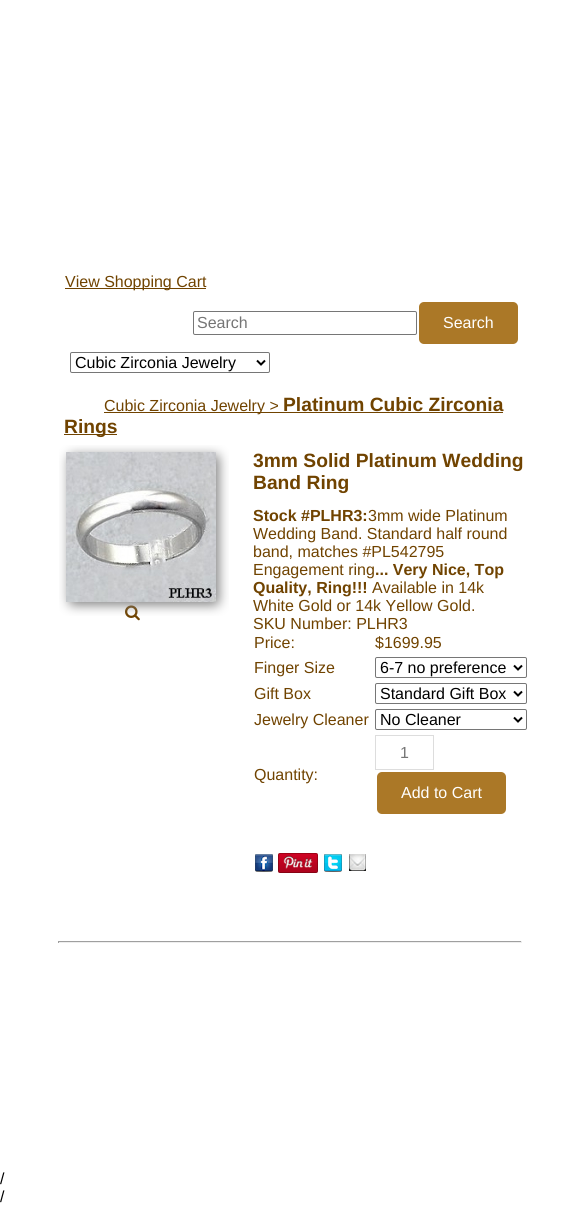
#include <cairo.h>
#include <math.h>
#include <stddef.h>

typedef struct { const char *family; double size; int italic, bold; unsigned color; } style_t;
static cairo_t *ctx;

static void ink(unsigned color) {
    cairo_set_source_rgb(ctx, (color >> 16) / 255.0, (color >> 8 & 255) / 255.0, (color & 255) / 255.0);
}

static void write(double x, double y, const char *s, const style_t *st) {
    cairo_select_font_face(ctx, st->family, st->italic ? CAIRO_FONT_SLANT_ITALIC : CAIRO_FONT_SLANT_NORMAL,
        st->bold ? CAIRO_FONT_WEIGHT_BOLD : CAIRO_FONT_WEIGHT_NORMAL);
    cairo_set_font_size(ctx, st->size);
    ink(st->color);
    cairo_move_to(ctx, x, y);
    cairo_show_text(ctx, s);
}

static void block(double x, double y, double w, double h, unsigned color) {
    ink(color);
    cairo_rectangle(ctx, x, y, w, h);
    cairo_fill(ctx);
}

static void round_path(double x, double y, double w, double h, double r) {
    cairo_new_sub_path(ctx);
    cairo_arc(ctx, x + w - r, y + h - r, r, 0, M_PI / 2);
    cairo_arc(ctx, x + r, y + h - r, r, M_PI / 2, M_PI);
    cairo_arc(ctx, x + r, y + r, r, M_PI, 1.5 * M_PI);
    cairo_arc(ctx, x + w - r, y + r, r, 1.5 * M_PI, 2 * M_PI);
    cairo_close_path(ctx);
}

static void paste(const char *path, double x, double y, double w, double h) {
    cairo_surface_t *image = cairo_image_surface_create_from_png(path);
    cairo_save(ctx);
    cairo_set_source_surface(ctx, image, x, y);
    cairo_rectangle(ctx, x, y, w, h);
    cairo_fill(ctx);
    cairo_restore(ctx);
    cairo_surface_destroy(image);
}

static const style_t s1 = {"Liberation Sans", 16, 0, 0, 0x704300};
static const style_t s2 = {"Liberation Sans", 16, 0, 0, 0x757575};
static const style_t s3 = {"Liberation Sans", 16, 0, 0, 0xffffff};
static const style_t s4 = {"Liberation Sans", 16, 0, 0, 0x000000};
static const style_t s5 = {"Liberation Sans", 19.25, 0, 1, 0x704300};
static const style_t s6 = {"Liberation Sans", 16, 0, 1, 0x704300};

int main(void) {
    cairo_surface_t *surface = cairo_image_surface_create(CAIRO_FORMAT_RGB24, 580, 1206);
    ctx = cairo_create(surface);
    cairo_font_options_t *options = cairo_font_options_create();
    cairo_font_options_set_hint_metrics(options, CAIRO_HINT_METRICS_OFF);
    cairo_font_options_set_hint_style(options, CAIRO_HINT_STYLE_NONE);
    cairo_set_font_options(ctx, options);
    cairo_set_miter_limit(ctx, 4);
    ink(0xffffff);
    cairo_paint(ctx);
    block(65, 288, 141, 1, 0x704300);
    write(65, 287, "View Shopping Cart", &s1);
    round_path(193.5, 311.5, 223, 23, 1.5);
    ink(0x767676);
    cairo_set_line_width(ctx, 1);
    cairo_stroke(ctx);
    write(197, 328, "Search", &s2);
    ink(0xab7827);
    round_path(419, 302, 99, 42, 5);
    cairo_fill(ctx);
    write(443, 328, "Search", &s3);
    round_path(70.5, 352.5, 199, 20, 1.5);
    ink(0x767676);
    cairo_stroke(ctx);
    cairo_new_path(ctx);
    cairo_move_to(ctx, 257, 360.5);
    cairo_line_to(ctx, 261, 364.5);
    cairo_line_to(ctx, 265, 360.5);
    ink(0x000000);
    cairo_set_line_width(ctx, 2);
    cairo_stroke(ctx);
    write(75, 368, "Cubic Zirconia Jewelry", &s4);
    block(104, 412, 399, 1, 0x704300);
    write(104, 411, "Cubic Zirconia Jewelry >", &s1);
    write(283, 411, "Platinum Cubic Zirconia", &s5);
    block(64, 434, 53, 1, 0x704300);
    write(64, 433, "Rings", &s5);
    paste("pic2.png", 125, 605, 15, 16);
    paste("pic1.png", 59, 445, 170, 171);
    write(253, 467, "3mm Solid Platinum Wedding", &s5);
    write(253, 489, "Band Ring", &s5);
    write(253, 521, "Stock #PLHR3:", &s6);
    write(368, 521, "3mm wide Platinum", &s1);
    write(253, 539, "Wedding Band. Standard half round", &s1);
    write(253, 557, "band, matches #PL542795", &s1);
    write(253, 575, "Engagement ring", &s1);
    write(375, 575, "... Very Nice, Top", &s6);
    write(253, 593, "Quality, Ring!!!", &s6);
    write(372, 593, "Available in 14k", &s1);
    write(253, 611, "White Gold or 14k Yellow Gold.", &s1);
    write(253, 629, "SKU Number: PLHR3", &s1);
    write(254, 648, "Price:", &s1);
    write(375, 648, "$1699.95", &s1);
    write(254, 673, "Finger Size", &s1);
    round_path(375.5, 657.5, 151, 20, 1.5);
    ink(0x767676);
    cairo_set_line_width(ctx, 1);
    cairo_stroke(ctx);
    cairo_new_path(ctx);
    cairo_move_to(ctx, 514, 665.5);
    cairo_line_to(ctx, 518, 669.5);
    cairo_line_to(ctx, 522, 665.5);
    ink(0x000000);
    cairo_set_line_width(ctx, 2);
    cairo_stroke(ctx);
    write(380, 673, "6-7 no preference", &s4);
    write(254, 699, "Gift Box", &s1);
    round_path(375.5, 683.5, 151, 20, 1.5);
    ink(0x767676);
    cairo_set_line_width(ctx, 1);
    cairo_stroke(ctx);
    cairo_new_path(ctx);
    cairo_move_to(ctx, 514, 691.5);
    cairo_line_to(ctx, 518, 695.5);
    cairo_line_to(ctx, 522, 691.5);
    ink(0x000000);
    cairo_set_line_width(ctx, 2);
    cairo_stroke(ctx);
    write(380, 699, "Standard Gift Box", &s4);
    write(254, 725, "Jewelry Cleaner", &s1);
    round_path(375.5, 709.5, 151, 20, 1.5);
    ink(0x767676);
    cairo_set_line_width(ctx, 1);
    cairo_stroke(ctx);
    cairo_new_path(ctx);
    cairo_move_to(ctx, 514, 717.5);
    cairo_line_to(ctx, 518, 721.5);
    cairo_line_to(ctx, 522, 717.5);
    ink(0x000000);
    cairo_set_line_width(ctx, 2);
    cairo_stroke(ctx);
    write(380, 725, "No Cleaner", &s4);
    write(254, 780, "Quantity:", &s1);
    cairo_rectangle(ctx, 375.5, 735.5, 58, 34);
    ink(0xdddddd);
    cairo_set_line_width(ctx, 1);
    cairo_stroke(ctx);
    write(400, 758, "1", &s2);
    ink(0xab7827);
    round_path(377, 772, 129, 42, 5);
    cairo_fill(ctx);
    write(401, 798, "Add to Cart", &s3);
    paste("pic3.png", 255, 854, 18, 18);
    paste("pic4.png", 278, 853, 40, 20);
    paste("pic5.png", 324, 854, 18, 18);
    paste("pic6.png", 349, 854, 17, 17);
    block(58, 941, 464, 1, 0x9f9f9f);
    block(521, 941, 1, 2, 0xeeeeee);
    block(58, 942, 464, 1, 0xeeeeee);
    block(58, 941, 1, 2, 0x9f9f9f);
    write(0, 1184, "/", &s4);
    write(0, 1202, "/", &s4);
    cairo_surface_write_to_png(surface, "screenshot.png");
    cairo_font_options_destroy(options);
    cairo_destroy(ctx);
    cairo_surface_destroy(surface);
    return 0;
}
